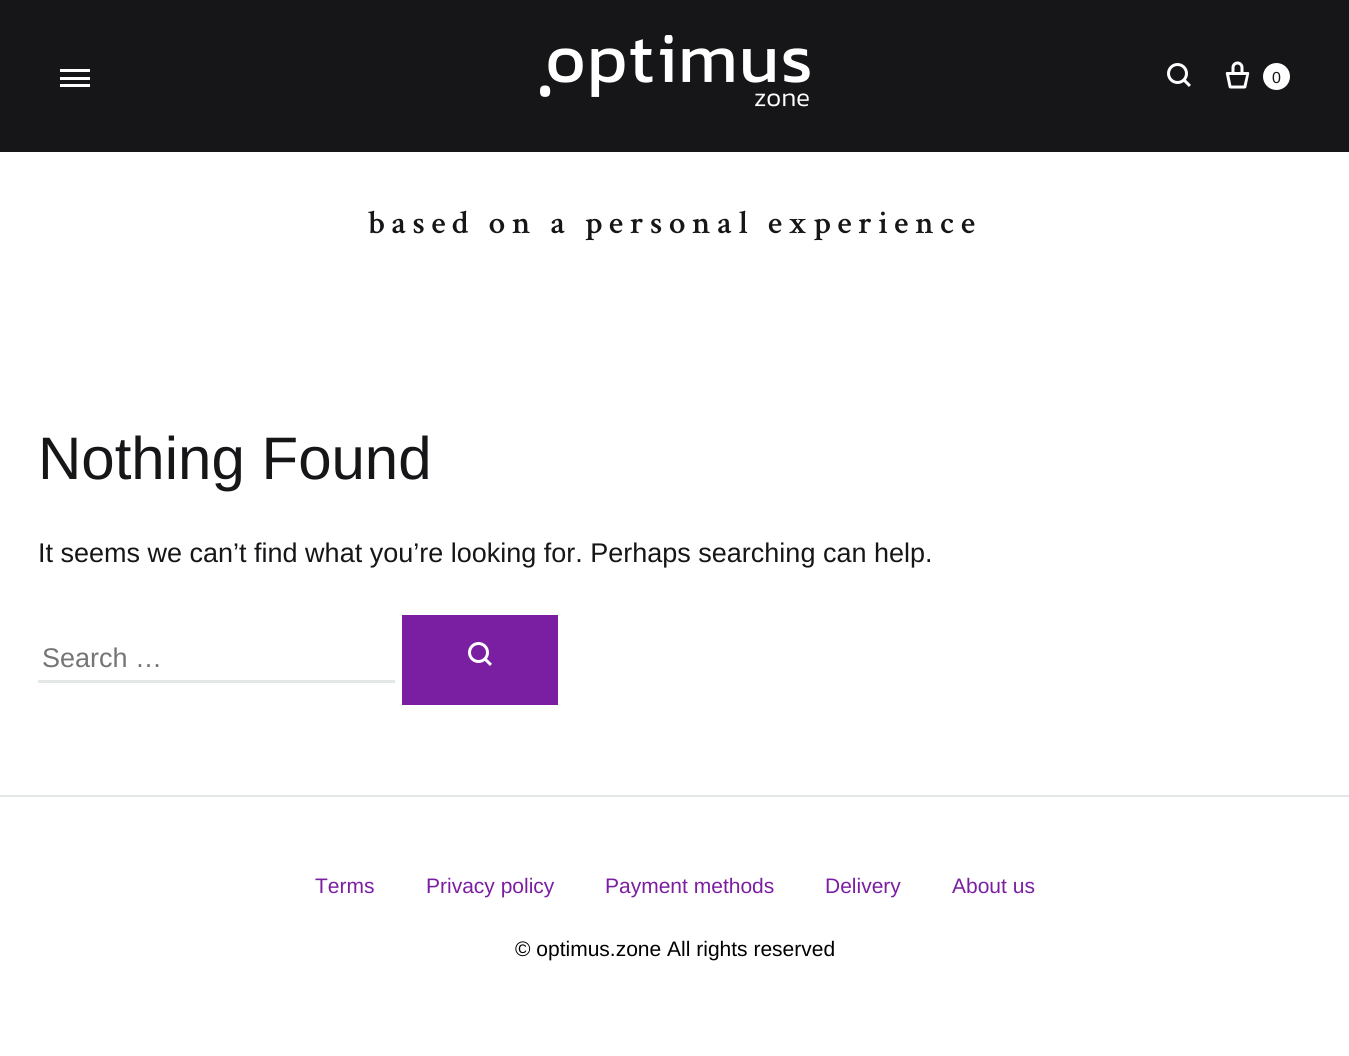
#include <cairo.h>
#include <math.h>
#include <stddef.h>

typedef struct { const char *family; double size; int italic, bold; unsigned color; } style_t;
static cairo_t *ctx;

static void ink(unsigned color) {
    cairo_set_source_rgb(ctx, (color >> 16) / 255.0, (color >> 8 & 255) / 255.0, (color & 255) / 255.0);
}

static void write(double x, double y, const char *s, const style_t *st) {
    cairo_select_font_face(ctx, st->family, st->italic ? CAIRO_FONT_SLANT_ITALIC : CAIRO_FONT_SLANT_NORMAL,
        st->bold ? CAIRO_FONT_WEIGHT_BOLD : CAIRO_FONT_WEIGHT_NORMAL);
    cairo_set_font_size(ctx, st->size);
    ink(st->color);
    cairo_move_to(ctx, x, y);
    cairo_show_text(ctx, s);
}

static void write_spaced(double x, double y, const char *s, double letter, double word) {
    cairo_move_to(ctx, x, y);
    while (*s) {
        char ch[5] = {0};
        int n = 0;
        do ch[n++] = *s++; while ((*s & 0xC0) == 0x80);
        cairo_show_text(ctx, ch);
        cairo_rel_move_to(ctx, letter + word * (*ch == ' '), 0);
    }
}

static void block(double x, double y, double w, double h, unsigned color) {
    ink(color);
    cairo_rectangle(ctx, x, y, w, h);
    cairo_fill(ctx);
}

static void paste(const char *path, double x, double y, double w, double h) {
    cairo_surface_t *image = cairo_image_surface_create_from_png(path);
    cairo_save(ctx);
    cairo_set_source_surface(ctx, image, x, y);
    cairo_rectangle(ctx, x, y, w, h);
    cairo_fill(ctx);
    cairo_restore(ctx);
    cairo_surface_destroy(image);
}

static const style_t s1 = {"Liberation Sans", 16, 0, 0, 0x161619};
static const style_t s2 = {"Liberation Sans", 60, 0, 0, 0x161619};
static const style_t s3 = {"Liberation Sans", 27, 0, 0, 0x161619};
static const style_t s4 = {"Liberation Sans", 27, 0, 0, 0x757575};
static const style_t s5 = {"Liberation Sans", 21, 0, 0, 0x7b1fa2};
static const style_t s6 = {"Liberation Sans", 21, 0, 0, 0x000000};

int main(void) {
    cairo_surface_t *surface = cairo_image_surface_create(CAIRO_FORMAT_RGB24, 1349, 1056);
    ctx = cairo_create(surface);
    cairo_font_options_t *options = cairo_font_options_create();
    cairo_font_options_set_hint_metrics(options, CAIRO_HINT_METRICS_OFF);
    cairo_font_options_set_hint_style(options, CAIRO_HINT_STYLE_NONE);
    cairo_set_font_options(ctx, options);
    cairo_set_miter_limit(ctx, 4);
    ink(0xffffff);
    cairo_paint(ctx);
    block(0, 0, 1349, 152, 0x161619);
    block(60, 77, 30, 3, 0xffffff);
    block(60, 69, 30, 3, 0xffffff);
    block(60, 84, 30, 3, 0xffffff);
    paste("pic1.png", 540, 35, 270, 72);
    paste("pic2.png", 1167, 63, 24, 24);
    paste("pic3.png", 1225, 61, 25, 28);
    cairo_arc(ctx, 1276.5, 76.5, 13.5, 0, 2 * M_PI);
    cairo_fill(ctx);
    write(1272, 83, "0", &s1);
    cairo_select_font_face(ctx, "Crimson Text SemiBold", CAIRO_FONT_SLANT_NORMAL, CAIRO_FONT_WEIGHT_NORMAL);
    cairo_set_font_size(ctx, 33);
    write_spaced(368, 233, "based on a personal experience", 6.6, 0);
    write(38, 479, "Nothing Found", &s2);
    write(38, 562, "It seems we can’t find what you’re looking for. Perhaps searching can help.", &s3);
    block(38, 680, 357, 3, 0xe3e7e8);
    write(42, 667, "Search …", &s4);
    block(402, 615, 156, 90, 0x7b1fa2);
    paste("pic4.png", 468, 642, 24, 24);
    block(0, 795, 1349, 2, 0xe3e7e8);
    write(315, 893, "Terms", &s5);
    write(426, 893, "Privacy policy", &s5);
    write(605, 893, "Payment methods", &s5);
    write(825, 893, "Delivery", &s5);
    write(952, 893, "About us", &s5);
    write(515, 956, "© optimus.zone All rights reserved", &s6);
    cairo_surface_write_to_png(surface, "screenshot.png");
    cairo_font_options_destroy(options);
    cairo_destroy(ctx);
    cairo_surface_destroy(surface);
    return 0;
}
